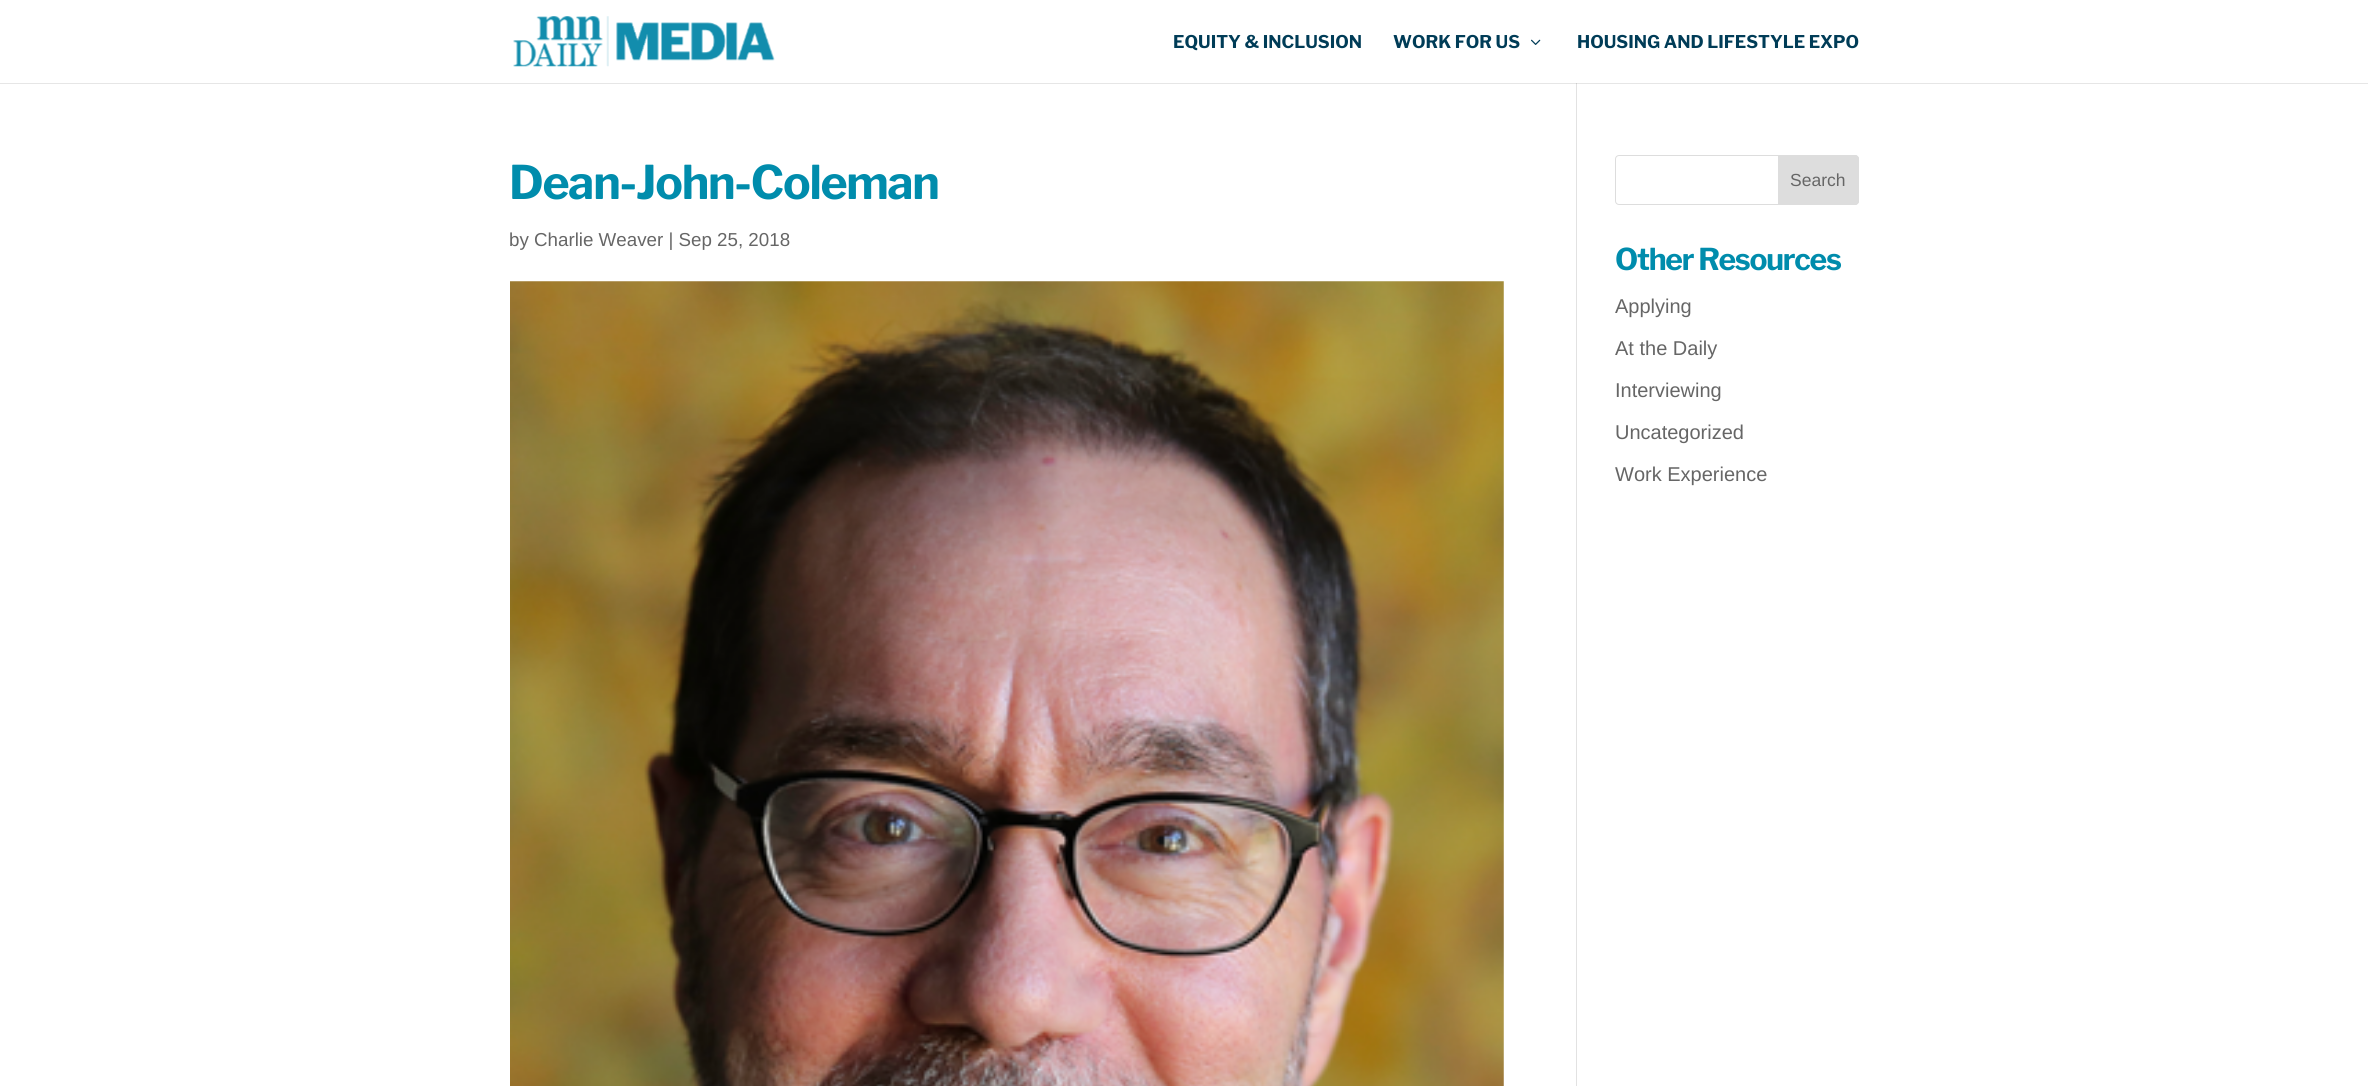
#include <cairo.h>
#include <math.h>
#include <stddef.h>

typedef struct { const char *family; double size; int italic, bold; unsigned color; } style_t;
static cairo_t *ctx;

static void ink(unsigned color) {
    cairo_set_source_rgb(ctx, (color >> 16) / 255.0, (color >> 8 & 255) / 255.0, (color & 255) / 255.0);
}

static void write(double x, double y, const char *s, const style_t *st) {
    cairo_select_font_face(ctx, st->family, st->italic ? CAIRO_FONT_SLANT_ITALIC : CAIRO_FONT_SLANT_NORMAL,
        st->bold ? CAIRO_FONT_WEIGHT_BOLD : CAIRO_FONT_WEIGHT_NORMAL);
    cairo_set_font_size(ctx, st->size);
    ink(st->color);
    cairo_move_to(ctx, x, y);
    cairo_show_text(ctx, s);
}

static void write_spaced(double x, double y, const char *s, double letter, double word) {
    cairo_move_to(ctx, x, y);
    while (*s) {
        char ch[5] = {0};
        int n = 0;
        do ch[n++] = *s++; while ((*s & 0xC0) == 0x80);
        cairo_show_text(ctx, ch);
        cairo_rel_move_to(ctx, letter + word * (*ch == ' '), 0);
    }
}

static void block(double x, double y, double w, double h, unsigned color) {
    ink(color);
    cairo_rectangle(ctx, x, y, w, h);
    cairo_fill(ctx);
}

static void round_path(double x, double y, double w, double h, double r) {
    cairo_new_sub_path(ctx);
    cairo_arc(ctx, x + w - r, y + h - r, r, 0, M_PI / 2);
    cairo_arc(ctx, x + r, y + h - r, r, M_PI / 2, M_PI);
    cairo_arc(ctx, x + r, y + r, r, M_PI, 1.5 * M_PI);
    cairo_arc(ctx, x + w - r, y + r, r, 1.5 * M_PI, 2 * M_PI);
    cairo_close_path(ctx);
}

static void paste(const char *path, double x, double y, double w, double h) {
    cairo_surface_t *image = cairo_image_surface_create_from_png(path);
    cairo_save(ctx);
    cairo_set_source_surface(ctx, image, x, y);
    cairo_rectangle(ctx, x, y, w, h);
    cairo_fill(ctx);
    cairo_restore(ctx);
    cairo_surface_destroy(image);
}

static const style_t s1 = {"Libre Franklin", 17.5, 0, 1, 0x003c57};
static const style_t s2 = {"Liberation Sans", 18.75, 0, 0, 0x666666};
static const style_t s3 = {"Liberation Sans", 17.5, 0, 0, 0x666666};
static const style_t s4 = {"Liberation Sans", 20, 0, 0, 0x666666};

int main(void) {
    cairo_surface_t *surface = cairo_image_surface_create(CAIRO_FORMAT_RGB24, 2368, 1086);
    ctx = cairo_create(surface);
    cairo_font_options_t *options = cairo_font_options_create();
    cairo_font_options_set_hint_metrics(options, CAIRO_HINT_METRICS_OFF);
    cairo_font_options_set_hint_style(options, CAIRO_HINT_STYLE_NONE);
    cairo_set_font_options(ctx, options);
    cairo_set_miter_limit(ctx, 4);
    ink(0xffffff);
    cairo_paint(ctx);
    block(1576, 83, 1, 1003, 0xe2e2e2);
    cairo_set_source_rgba(ctx, 0, 0, 0, 0.1);
    cairo_new_path(ctx);
    cairo_move_to(ctx, 0, 82);
    cairo_line_to(ctx, 0, 84);
    cairo_line_to(ctx, 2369, 84);
    cairo_line_to(ctx, 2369, 1);
    cairo_line_to(ctx, 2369, 82);
    cairo_close_path(ctx);
    cairo_fill(ctx);
    block(0, 82, 2368, 1, 0xffffff);
    paste("pic1.png", 513, 16, 262, 51);
    write(1173, 48, "EQUITY & INCLUSION", &s1);
    write(1393, 48, "WORK FOR US", &s1);
    paste("pic2.png", 1531, 39, 10, 6);
    write(1577, 48, "HOUSING AND LIFESTYLE EXPO", &s1);
    cairo_set_font_size(ctx, 46.25);
    ink(0x008cac);
    write_spaced(509, 199, "Dean-John-Coleman", -1.25, 0);
    write(509, 246, "by Charlie Weaver | Sep 25, 2018", &s2);
    paste("pic3.png", 510, 281, 994, 805);
    round_path(1615.5, 155.5, 243, 49, 3.5);
    ink(0xdddddd);
    cairo_set_line_width(ctx, 1);
    cairo_stroke(ctx);
    cairo_new_path(ctx);
    cairo_move_to(ctx, 1778.5, 155.5);
    cairo_line_to(ctx, 1855, 155.5);
    cairo_curve_to(ctx, 1857, 155.5, 1858.5, 157, 1858.5, 159);
    cairo_line_to(ctx, 1858.5, 201);
    cairo_curve_to(ctx, 1858.5, 203, 1857, 204.5, 1855, 204.5);
    cairo_line_to(ctx, 1778.5, 204.5);
    cairo_close_path(ctx);
    cairo_fill_preserve(ctx);
    cairo_stroke(ctx);
    write(1790, 186, "Search", &s3);
    cairo_select_font_face(ctx, "Libre Franklin", CAIRO_FONT_SLANT_NORMAL, CAIRO_FONT_WEIGHT_BOLD);
    cairo_set_font_size(ctx, 30);
    ink(0x008cac);
    write_spaced(1615, 270, "Other Resources", -1.25, 0);
    write(1615, 313, "Applying", &s4);
    write(1615, 355, "At the Daily", &s4);
    write(1615, 397, "Interviewing", &s4);
    write(1615, 439, "Uncategorized", &s4);
    write(1615, 481, "Work Experience", &s4);
    cairo_surface_write_to_png(surface, "screenshot.png");
    cairo_font_options_destroy(options);
    cairo_destroy(ctx);
    cairo_surface_destroy(surface);
    return 0;
}
